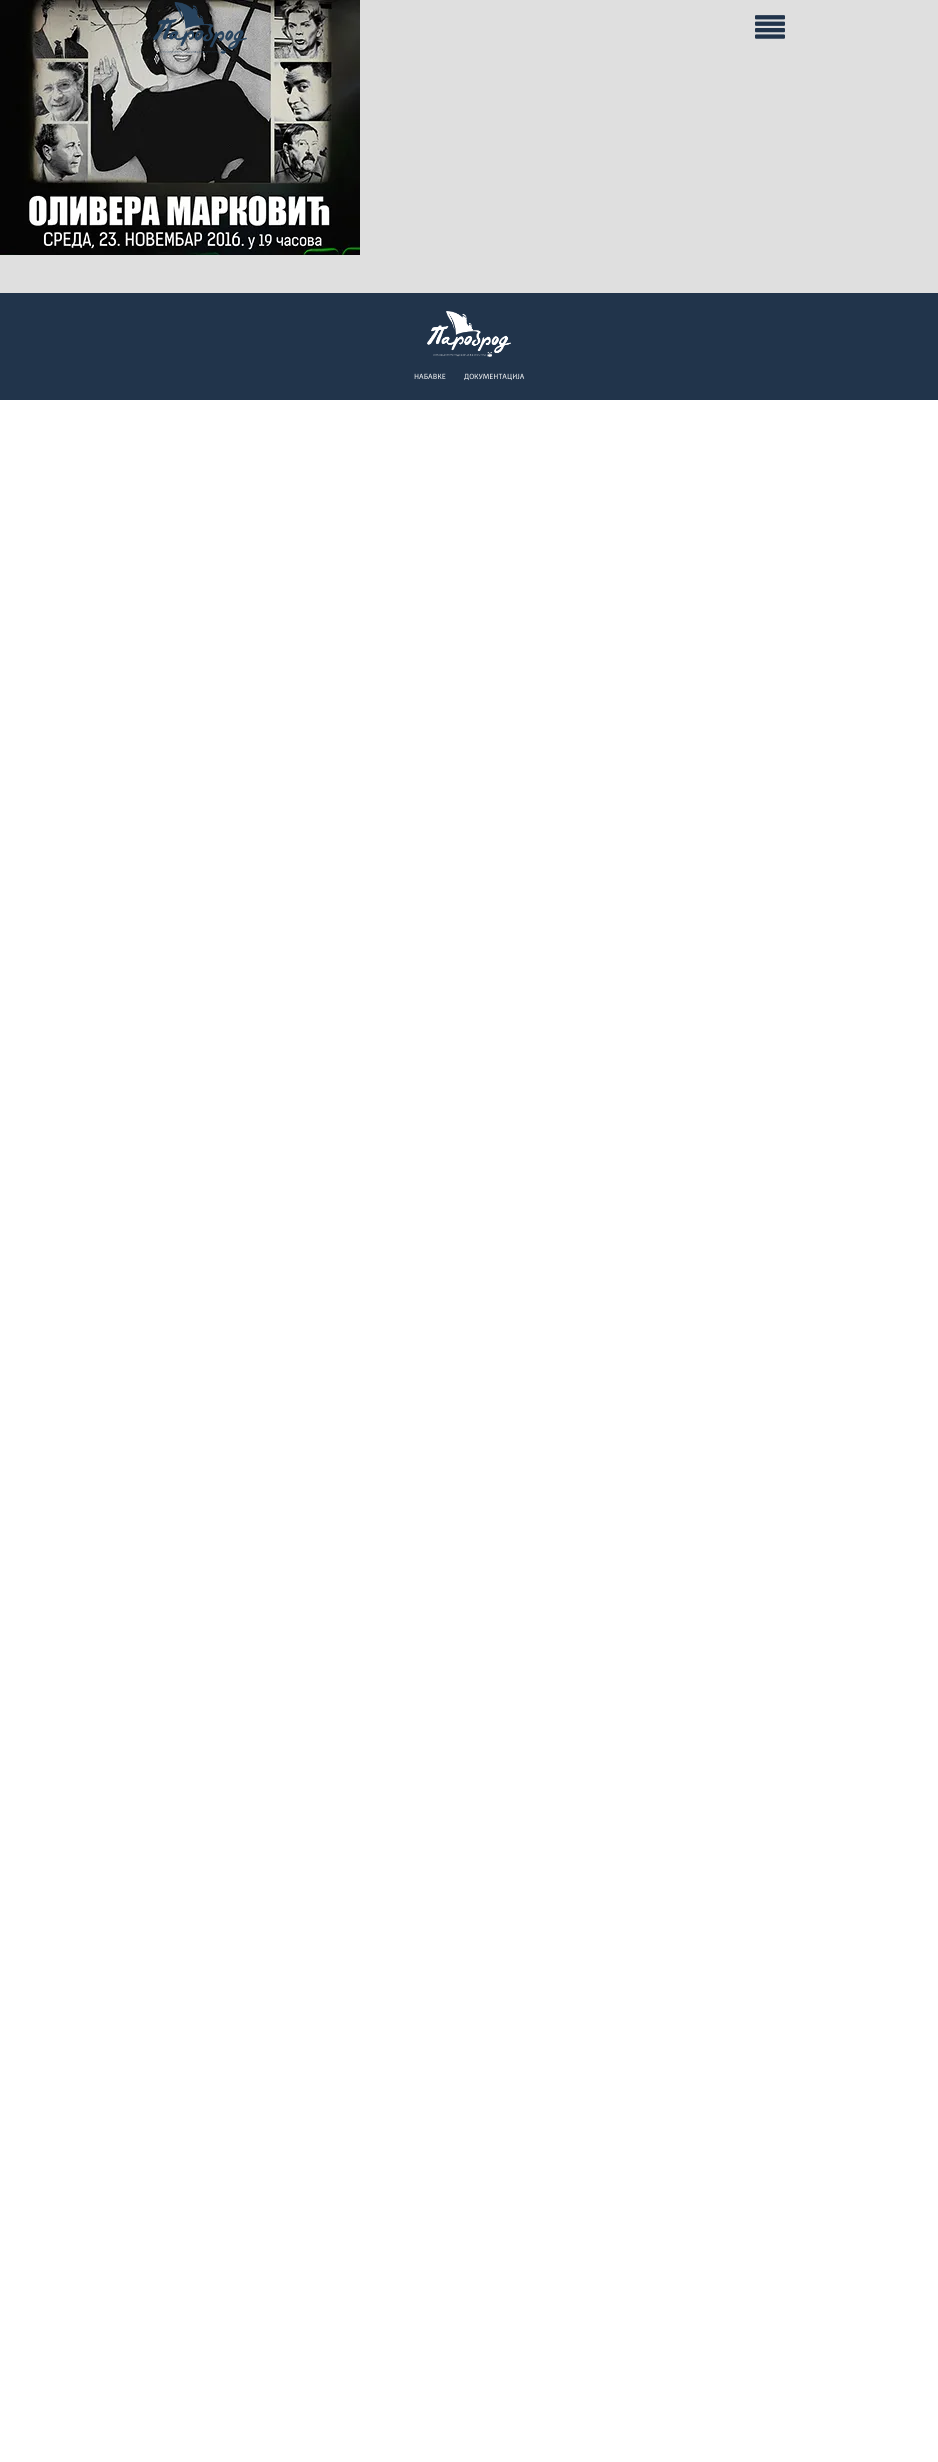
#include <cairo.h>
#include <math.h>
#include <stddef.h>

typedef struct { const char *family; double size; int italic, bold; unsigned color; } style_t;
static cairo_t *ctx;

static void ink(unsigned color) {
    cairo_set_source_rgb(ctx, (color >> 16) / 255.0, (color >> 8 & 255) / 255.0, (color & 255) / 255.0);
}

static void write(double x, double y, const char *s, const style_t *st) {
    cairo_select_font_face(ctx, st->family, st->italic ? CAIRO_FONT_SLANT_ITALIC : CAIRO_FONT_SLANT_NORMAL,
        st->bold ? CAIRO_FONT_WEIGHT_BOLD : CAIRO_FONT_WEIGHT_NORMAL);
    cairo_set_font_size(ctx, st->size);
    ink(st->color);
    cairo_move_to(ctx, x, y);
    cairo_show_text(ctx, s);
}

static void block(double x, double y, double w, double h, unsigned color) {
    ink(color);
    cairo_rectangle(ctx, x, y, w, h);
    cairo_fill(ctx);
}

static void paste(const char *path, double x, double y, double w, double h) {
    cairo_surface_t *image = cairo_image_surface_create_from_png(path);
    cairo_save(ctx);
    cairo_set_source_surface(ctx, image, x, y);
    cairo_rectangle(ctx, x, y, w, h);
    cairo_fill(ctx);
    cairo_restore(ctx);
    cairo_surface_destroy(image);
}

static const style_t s1 = {"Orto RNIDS", 7.5, 0, 0, 0xffffff};

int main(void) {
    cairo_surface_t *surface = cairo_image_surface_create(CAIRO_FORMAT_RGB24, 938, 2462);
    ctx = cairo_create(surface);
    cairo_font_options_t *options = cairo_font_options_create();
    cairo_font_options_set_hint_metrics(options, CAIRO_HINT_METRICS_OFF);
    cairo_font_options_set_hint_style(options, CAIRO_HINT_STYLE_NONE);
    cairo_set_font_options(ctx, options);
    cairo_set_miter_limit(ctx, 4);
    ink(0xffffff);
    cairo_paint(ctx);
    block(0, 0, 938, 293, 0xdfdfdf);
    paste("pic1.png", 0, 0, 360, 255);
    paste("pic2.png", 153, 2, 94, 52);
    paste("pic3.png", 755, 15, 30, 24);
    block(0, 293, 938, 107, 0x21344b);
    paste("pic4.png", 427, 311, 84, 46);
    write(414, 379, "НАБАВКЕ", &s1);
    write(464, 379, "ДОКУМЕНТАЦИЈА", &s1);
    cairo_surface_write_to_png(surface, "screenshot.png");
    cairo_font_options_destroy(options);
    cairo_destroy(ctx);
    cairo_surface_destroy(surface);
    return 0;
}
